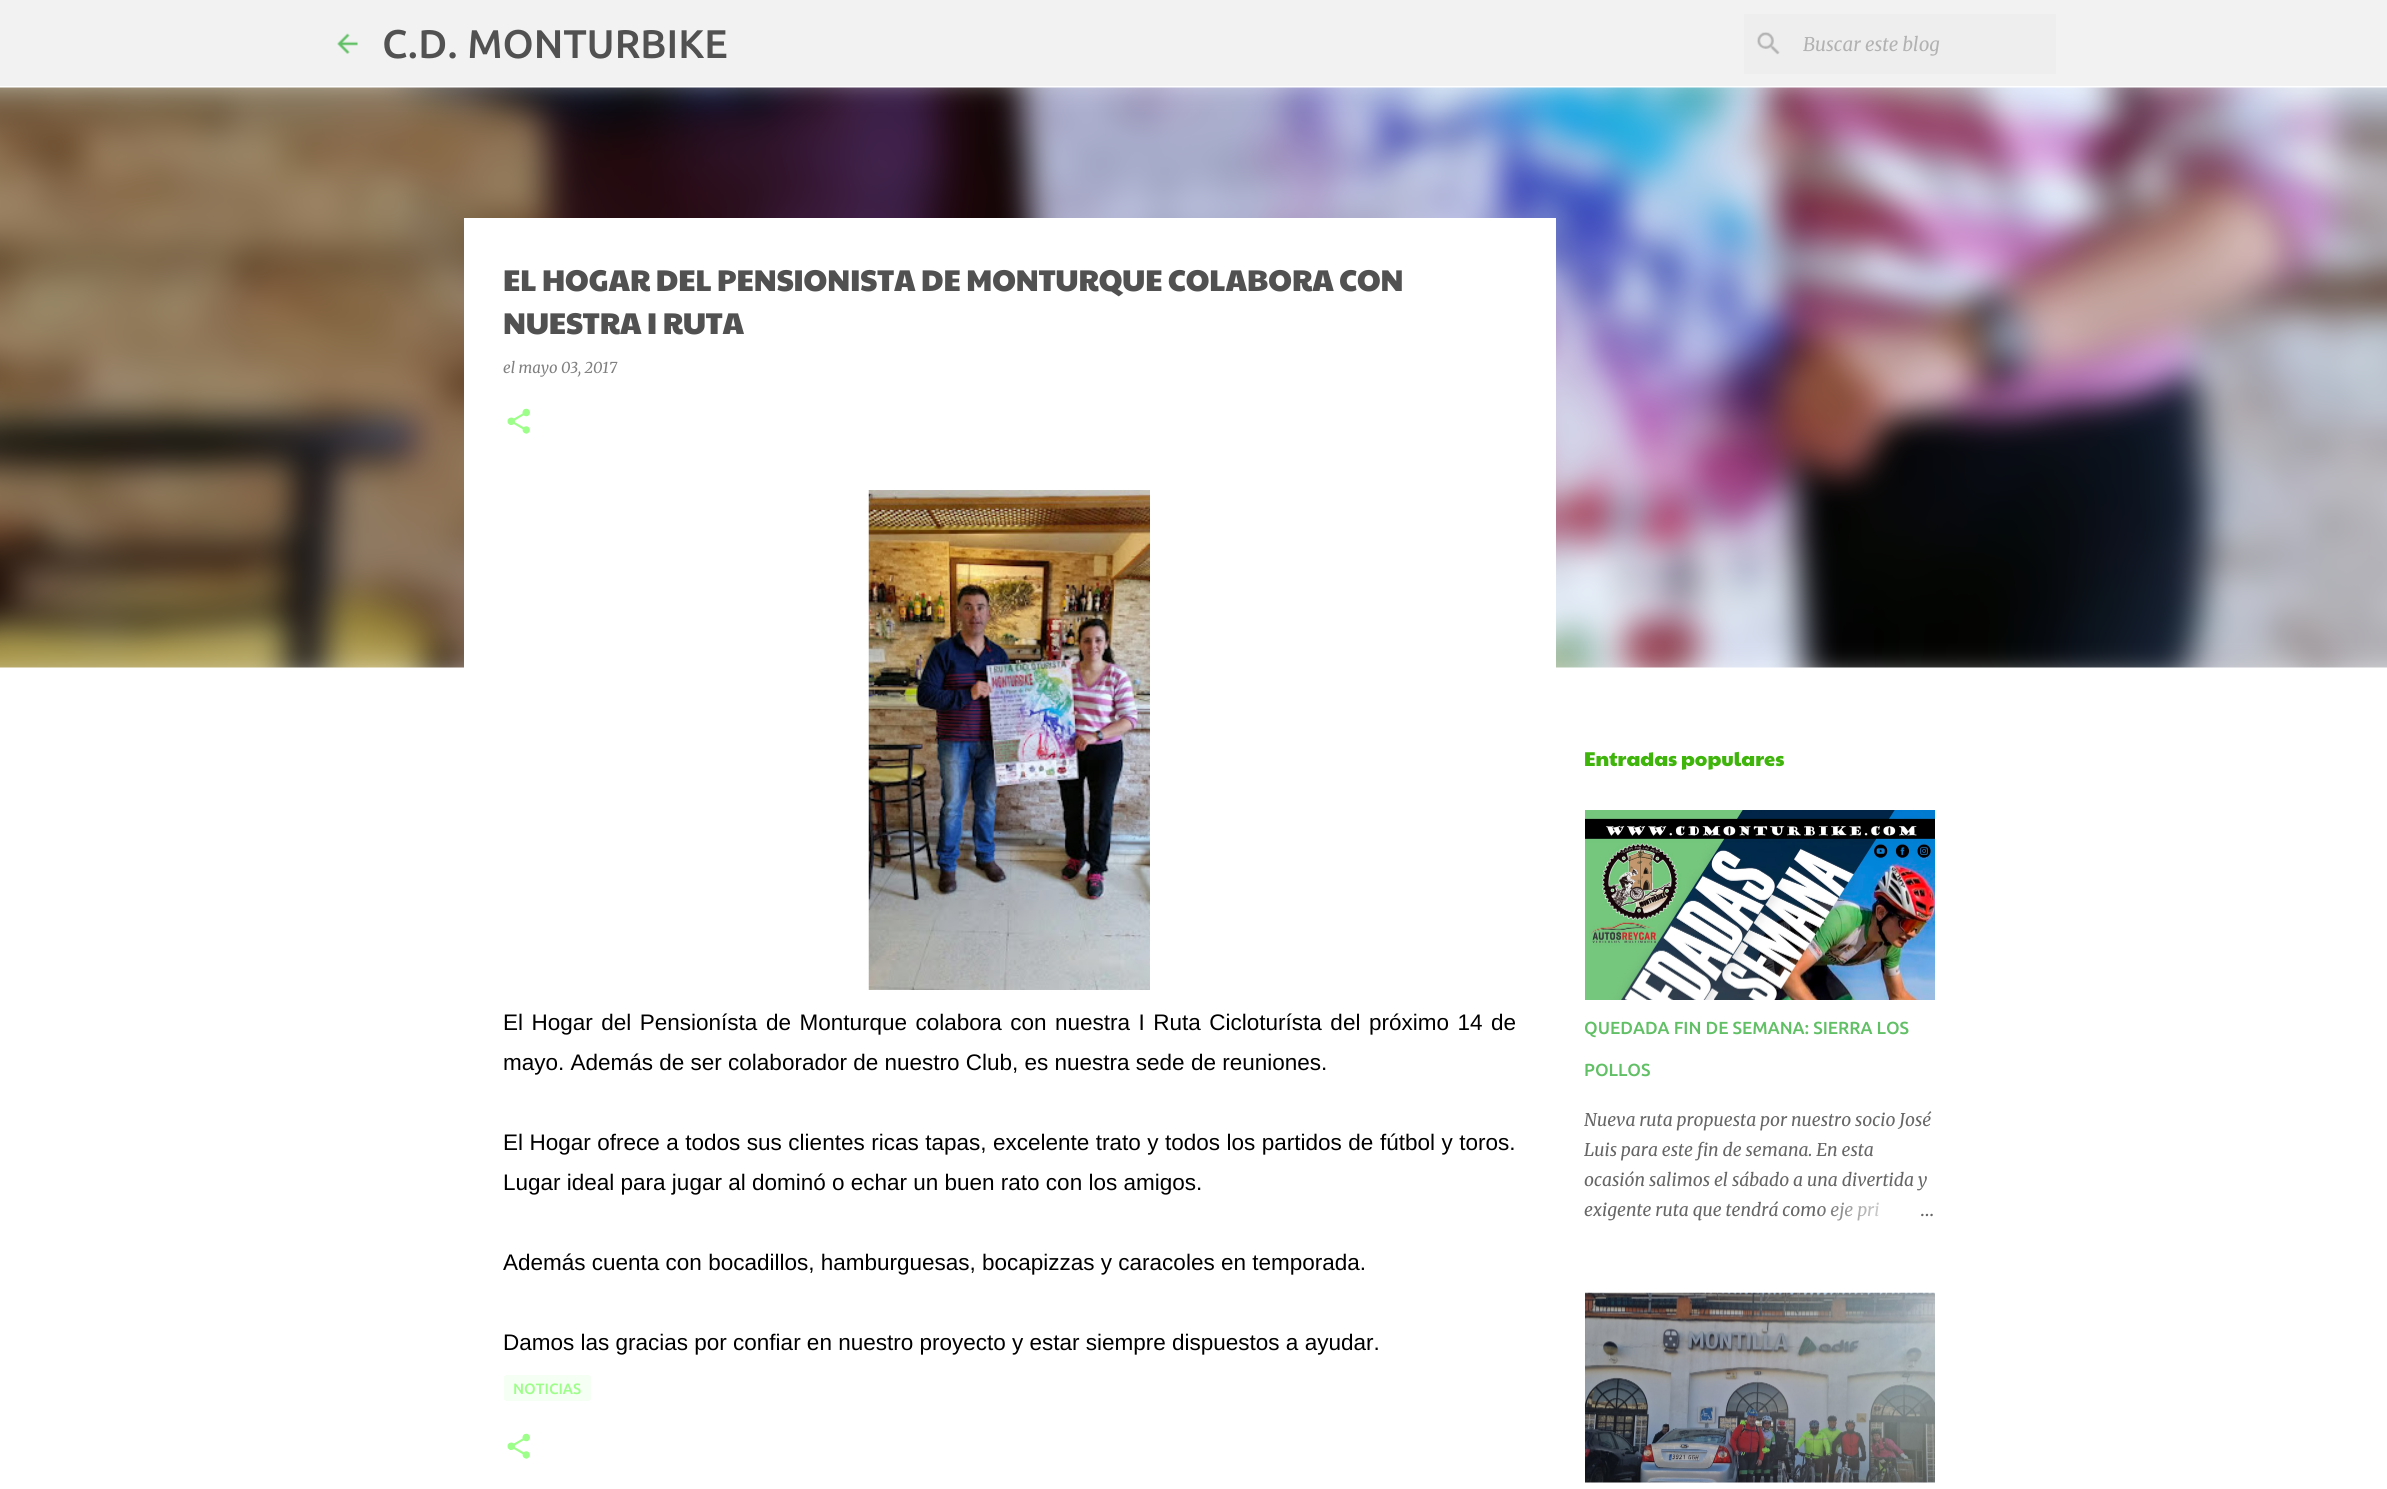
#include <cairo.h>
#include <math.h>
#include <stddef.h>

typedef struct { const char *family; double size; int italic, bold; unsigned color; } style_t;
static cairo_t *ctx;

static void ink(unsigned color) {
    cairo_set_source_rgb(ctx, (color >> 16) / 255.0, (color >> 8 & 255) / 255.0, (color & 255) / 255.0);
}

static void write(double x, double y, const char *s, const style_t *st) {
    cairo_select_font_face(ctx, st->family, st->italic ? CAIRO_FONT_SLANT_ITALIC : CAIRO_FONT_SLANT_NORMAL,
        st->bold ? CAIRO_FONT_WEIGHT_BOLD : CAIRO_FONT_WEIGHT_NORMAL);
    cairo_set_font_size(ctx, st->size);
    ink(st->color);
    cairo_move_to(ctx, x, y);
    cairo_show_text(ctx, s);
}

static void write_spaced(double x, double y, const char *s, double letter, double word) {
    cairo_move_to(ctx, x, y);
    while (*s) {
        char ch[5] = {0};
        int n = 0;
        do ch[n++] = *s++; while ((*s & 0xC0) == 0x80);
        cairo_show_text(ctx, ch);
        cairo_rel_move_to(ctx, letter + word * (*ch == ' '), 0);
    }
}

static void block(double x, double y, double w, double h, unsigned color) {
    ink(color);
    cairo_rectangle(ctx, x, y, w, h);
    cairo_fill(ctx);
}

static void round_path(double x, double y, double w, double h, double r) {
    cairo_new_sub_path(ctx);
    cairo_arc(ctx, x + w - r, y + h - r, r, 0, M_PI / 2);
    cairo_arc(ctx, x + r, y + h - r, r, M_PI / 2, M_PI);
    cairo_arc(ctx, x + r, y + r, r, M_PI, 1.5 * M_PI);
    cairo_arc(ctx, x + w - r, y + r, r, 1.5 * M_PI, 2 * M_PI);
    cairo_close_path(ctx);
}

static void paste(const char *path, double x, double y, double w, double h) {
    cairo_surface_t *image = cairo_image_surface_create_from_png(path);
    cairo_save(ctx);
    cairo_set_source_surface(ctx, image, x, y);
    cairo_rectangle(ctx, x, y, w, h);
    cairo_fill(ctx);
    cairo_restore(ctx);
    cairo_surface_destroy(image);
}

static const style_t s1 = {"Ubuntu Medium", 40, 0, 0, 0x515151};
static const style_t s2 = {"Merriweather", 18.75, 1, 0, 0xb2b2b2};
static const style_t s3 = {"Paytone One", 30, 0, 0, 0x515151};
static const style_t s4 = {"Merriweather", 15, 1, 0, 0x808080};
static const style_t s5 = {"Liberation Sans", 22.5, 0, 0, 0x000000};
static const style_t s6 = {"Ubuntu Medium", 15, 0, 0, 0x9dff8a};
static const style_t s7 = {"Paytone One", 20, 0, 0, 0x3fb50c};
static const style_t s8 = {"Ubuntu Medium", 17.5, 0, 0, 0x61bf65};
static const style_t s9 = {"Merriweather", 17.5, 1, 0, 0x666666};
static const style_t s10 = {"Merriweather Light", 17.5, 0, 0, 0x666666};

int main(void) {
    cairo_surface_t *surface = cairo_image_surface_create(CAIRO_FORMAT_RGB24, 2387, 1489);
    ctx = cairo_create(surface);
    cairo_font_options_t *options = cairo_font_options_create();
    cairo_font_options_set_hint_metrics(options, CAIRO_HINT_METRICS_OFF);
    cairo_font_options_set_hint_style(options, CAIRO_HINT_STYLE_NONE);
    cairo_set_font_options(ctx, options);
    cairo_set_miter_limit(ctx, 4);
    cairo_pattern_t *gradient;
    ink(0xffffff);
    cairo_paint(ctx);
    block(0, 0, 2387, 86, 0xf2f2f2);
    paste("pic1.png", 337, 33, 21, 21);
    write(382, 58, "C.D. MONTURBIKE", &s1);
    block(1744, 14, 312, 60, 0xeeeeee);
    paste("pic2.png", 1757, 32, 23, 23);
    write(1803, 51, "Buscar este blog", &s2);
    paste("pic7.png", 0, 87, 2387, 581);
    block(464, 218, 1092, 450, 0xffffff);
    write(503, 291, "EL HOGAR DEL PENSIONISTA DE MONTURQUE COLABORA CON", &s3);
    write(503, 334, "NUESTRA I RUTA", &s3);
    write(503, 373, "el mayo 03, 2017", &s4);
    paste("pic3.png", 507, 408, 23, 26);
    paste("pic4.png", 868, 490, 282, 500);
    cairo_select_font_face(ctx, "Liberation Sans", CAIRO_FONT_SLANT_NORMAL, CAIRO_FONT_WEIGHT_NORMAL);
    cairo_set_font_size(ctx, 22.5);
    ink(0x000000);
    write_spaced(503, 1030, "El Hogar del Pensionísta de Monturque colabora con nuestra I Ruta Cicloturísta del próximo 14 de", 0, 2.25);
    write(503, 1070, "mayo. Además de ser colaborador de nuestro Club, es nuestra sede de reuniones.", &s5);
    write_spaced(503, 1150, "El Hogar ofrece a todos sus clientes ricas tapas, excelente trato y todos los partidos de fútbol y toros.", 0, 0.25);
    write(503, 1190, "Lugar ideal para jugar al dominó o echar un buen rato con los amigos.", &s5);
    write(503, 1270, "Además cuenta con bocadillos, hamburguesas, bocapizzas y caracoles en temporada.", &s5);
    write(503, 1350, "Damos las gracias por confiar en nuestro proyecto y estar siempre dispuestos a ayudar.", &s5);
    ink(0xf5fff3);
    round_path(504, 1375, 87, 26, 2.5);
    cairo_fill(ctx);
    write(513, 1394, "NOTICIAS", &s6);
    paste("pic3.png", 507, 1433, 23, 26);
    write(1584, 766, "Entradas populares", &s7);
    paste("pic5.png", 1585, 810, 350, 190);
    write(1584, 1034, "QUEDADA FIN DE SEMANA: SIERRA LOS", &s8);
    write(1584, 1076, "POLLOS", &s8);
    write(1584, 1126, "Nueva ruta propuesta por nuestro socio José", &s9);
    write(1584, 1156, "Luis para este fin de semana. En esta", &s9);
    write(1584, 1186, "ocasión salimos el sábado a una divertida y", &s9);
    write(1584, 1216, "exigente ruta que tendrá como eje pri", &s9);
    gradient = cairo_pattern_create_linear(1935, 1210, 1815, 1210);
    cairo_pattern_add_color_stop_rgba(gradient, 0, 1, 1, 1, 1);
    cairo_pattern_add_color_stop_rgba(gradient, 0.2, 1, 1, 1, 1);
    cairo_pattern_add_color_stop_rgba(gradient, 1, 1, 1, 1, 0);
    cairo_set_source(ctx, gradient);
    cairo_pattern_destroy(gradient);
    cairo_rectangle(ctx, 1818, 1202, 62, 19);
    cairo_fill(ctx);
    write(1920, 1216, "…", &s10);
    paste("pic6.png", 1585, 1292, 350, 191);
    cairo_surface_write_to_png(surface, "screenshot.png");
    cairo_font_options_destroy(options);
    cairo_destroy(ctx);
    cairo_surface_destroy(surface);
    return 0;
}
